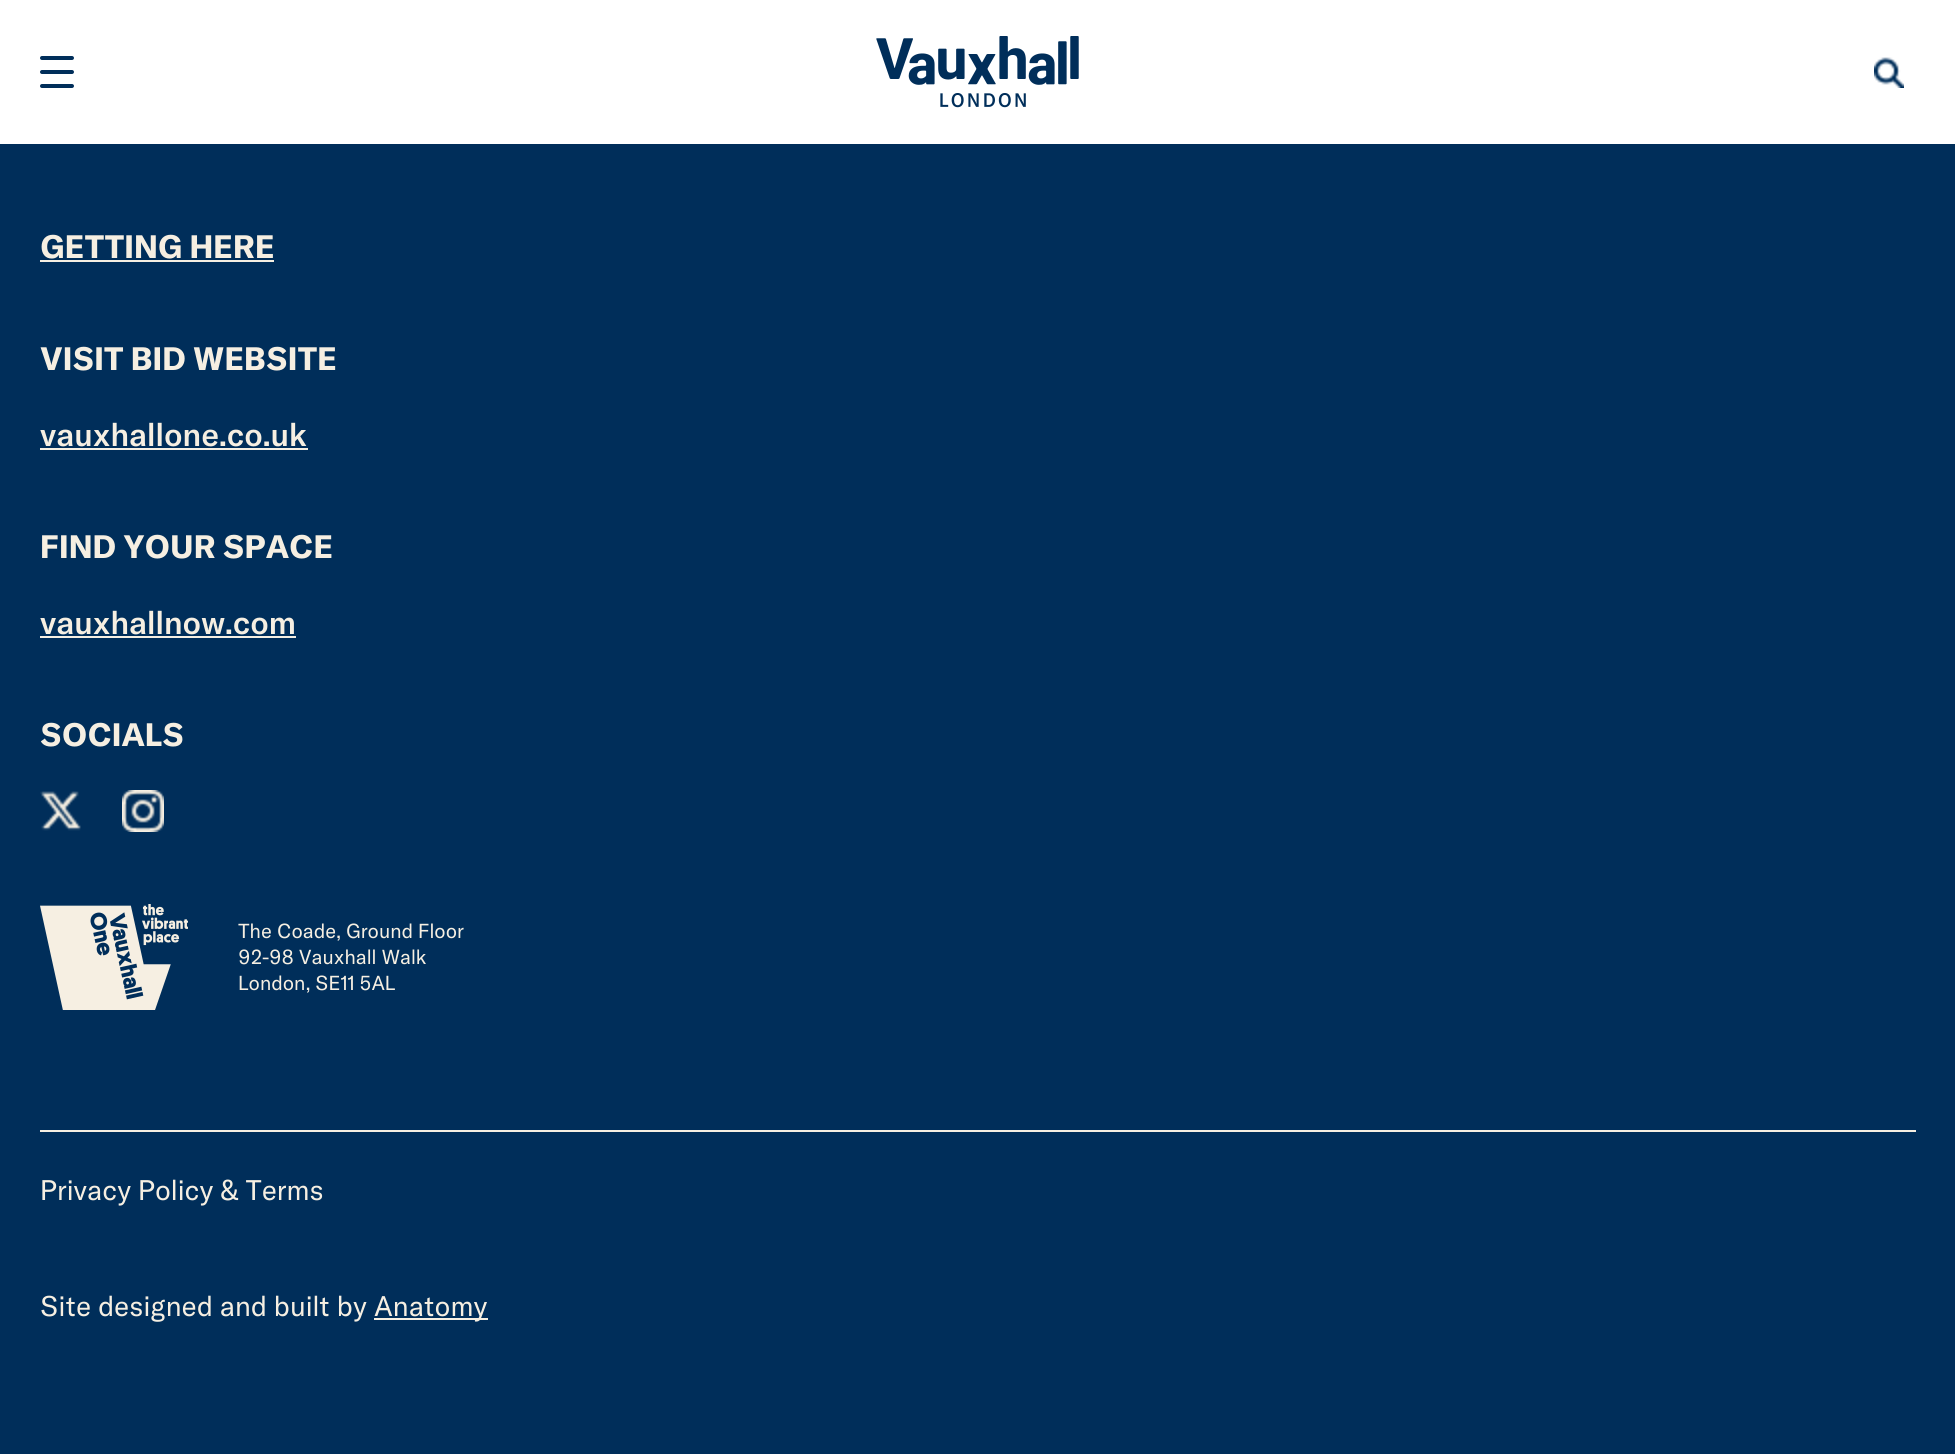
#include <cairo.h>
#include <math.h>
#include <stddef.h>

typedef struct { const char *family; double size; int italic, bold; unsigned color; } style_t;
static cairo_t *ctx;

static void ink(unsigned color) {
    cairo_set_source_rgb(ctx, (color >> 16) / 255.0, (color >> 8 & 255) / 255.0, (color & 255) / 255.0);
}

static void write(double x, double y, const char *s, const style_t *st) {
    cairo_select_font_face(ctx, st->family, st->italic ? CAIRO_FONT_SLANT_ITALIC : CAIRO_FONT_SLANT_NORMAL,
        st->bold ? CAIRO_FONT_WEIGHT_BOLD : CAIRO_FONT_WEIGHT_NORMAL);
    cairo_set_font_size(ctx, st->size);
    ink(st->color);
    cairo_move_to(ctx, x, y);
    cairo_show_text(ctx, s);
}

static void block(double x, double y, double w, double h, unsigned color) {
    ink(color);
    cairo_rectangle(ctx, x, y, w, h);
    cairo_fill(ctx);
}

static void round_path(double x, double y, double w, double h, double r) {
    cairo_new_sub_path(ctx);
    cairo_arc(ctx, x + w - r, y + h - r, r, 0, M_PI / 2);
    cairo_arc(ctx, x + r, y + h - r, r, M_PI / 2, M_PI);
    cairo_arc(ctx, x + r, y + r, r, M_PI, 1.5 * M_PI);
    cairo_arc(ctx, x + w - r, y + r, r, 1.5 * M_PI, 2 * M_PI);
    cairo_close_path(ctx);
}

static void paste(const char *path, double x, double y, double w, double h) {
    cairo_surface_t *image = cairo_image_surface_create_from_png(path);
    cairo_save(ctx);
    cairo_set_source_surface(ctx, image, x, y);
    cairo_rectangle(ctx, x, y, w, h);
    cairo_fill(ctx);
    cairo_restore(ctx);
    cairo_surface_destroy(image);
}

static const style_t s1 = {"GT America", 32, 0, 1, 0xf6efe2};
static const style_t s2 = {"GT America Medium", 32, 0, 0, 0xf6efe2};
static const style_t s3 = {"GT America", 20, 0, 0, 0xf6efe2};
static const style_t s4 = {"GT America", 28, 0, 0, 0xf6efe2};

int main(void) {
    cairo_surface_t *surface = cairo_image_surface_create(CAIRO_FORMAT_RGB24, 1955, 1454);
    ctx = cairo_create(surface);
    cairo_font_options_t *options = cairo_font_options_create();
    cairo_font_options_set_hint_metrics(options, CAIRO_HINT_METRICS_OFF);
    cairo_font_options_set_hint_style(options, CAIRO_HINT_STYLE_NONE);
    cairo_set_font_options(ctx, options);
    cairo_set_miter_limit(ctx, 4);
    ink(0x002e5a);
    cairo_paint(ctx);
    block(0, 0, 1955, 144, 0xffffff);
    ink(0x002e5a);
    round_path(40, 56, 34, 4, 2);
    cairo_fill(ctx);
    round_path(40, 70, 34, 4, 2);
    cairo_fill(ctx);
    round_path(40, 84, 34, 4, 2);
    cairo_fill(ctx);
    paste("pic1.png", 876, 36, 203, 72);
    paste("pic2.png", 1874, 57, 30, 31);
    block(40, 1130, 1876, 2, 0xf6efe2);
    write(40, 258, "GETTING HERE", &s1);
    block(40, 260, 234, 2, 0xf6efe2);
    write(40, 370, "VISIT BID WEBSITE", &s1);
    write(40, 446, "vauxhallone.co.uk", &s2);
    block(40, 448, 268, 2, 0xf6efe2);
    write(40, 558, "FIND YOUR SPACE", &s1);
    write(40, 634, "vauxhallnow.com", &s2);
    block(40, 636, 256, 2, 0xf6efe2);
    write(40, 746, "SOCIALS", &s1);
    paste("pic3.png", 40, 791, 41, 40);
    paste("pic4.png", 122, 790, 42, 42);
    paste("pic5.png", 40, 904, 148, 106);
    write(238, 938, "The Coade, Ground Floor", &s3);
    write(238, 964, "92-98 Vauxhall Walk", &s3);
    write(238, 990, "London, SE11 5AL", &s3);
    write(40, 1200, "Privacy Policy & Terms", &s4);
    write(40, 1316, "Site designed and built by", &s4);
    block(374, 1318, 114, 2, 0xf6efe2);
    write(374, 1316, "Anatomy", &s4);
    cairo_surface_write_to_png(surface, "screenshot.png");
    cairo_font_options_destroy(options);
    cairo_destroy(ctx);
    cairo_surface_destroy(surface);
    return 0;
}
